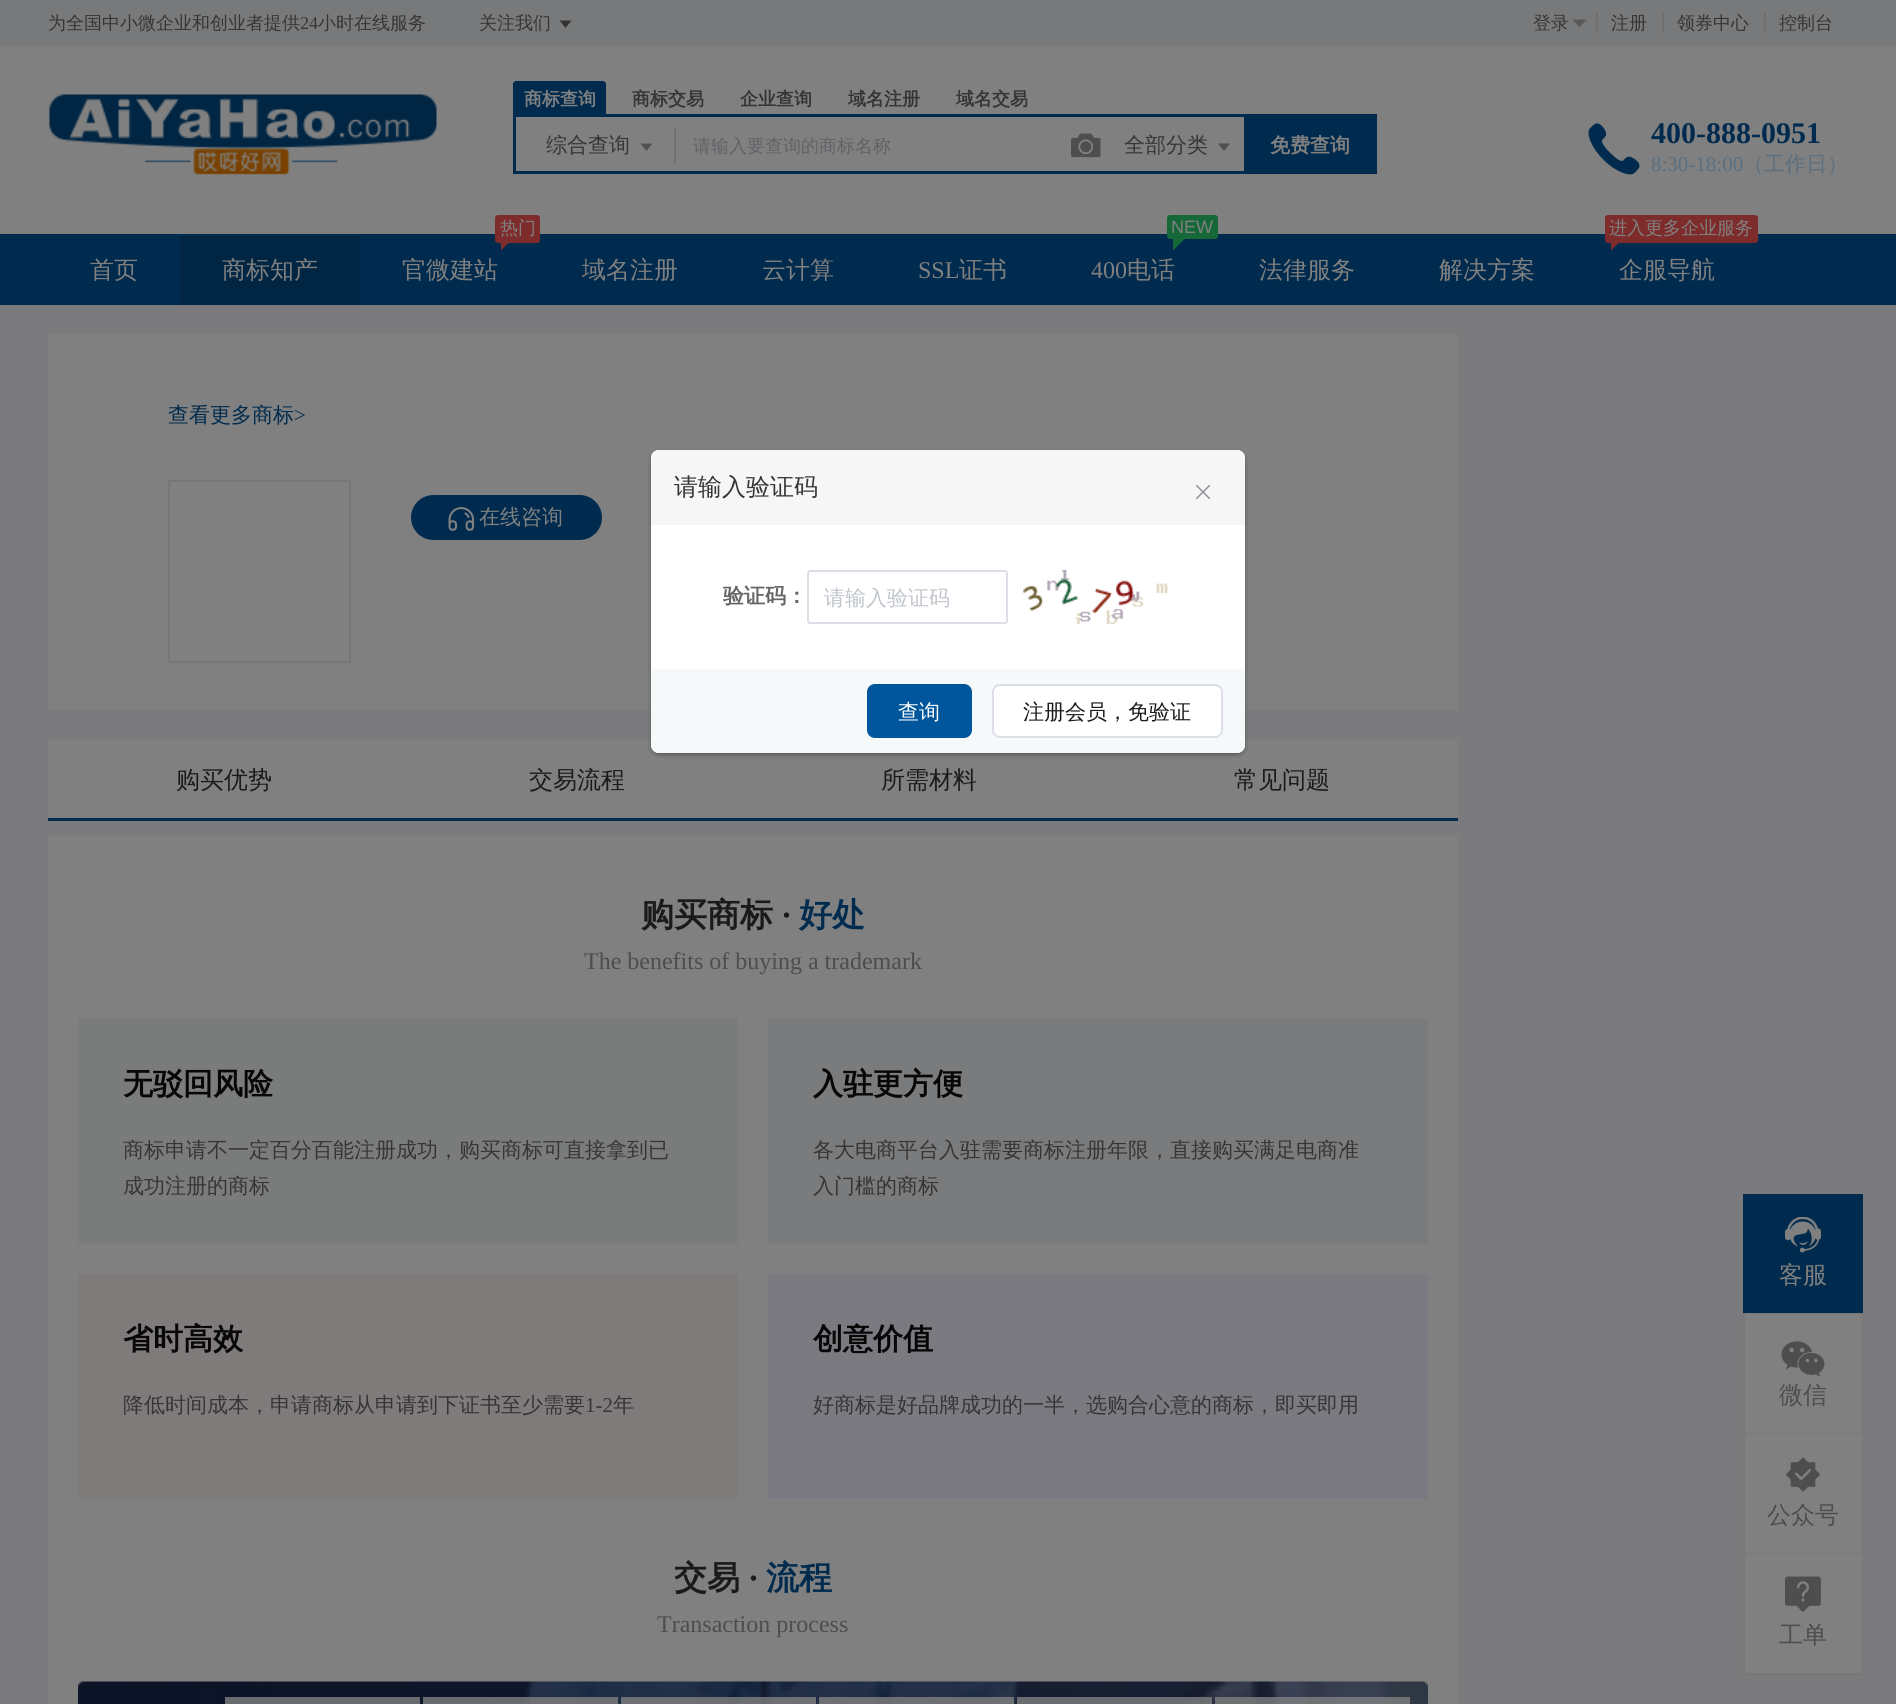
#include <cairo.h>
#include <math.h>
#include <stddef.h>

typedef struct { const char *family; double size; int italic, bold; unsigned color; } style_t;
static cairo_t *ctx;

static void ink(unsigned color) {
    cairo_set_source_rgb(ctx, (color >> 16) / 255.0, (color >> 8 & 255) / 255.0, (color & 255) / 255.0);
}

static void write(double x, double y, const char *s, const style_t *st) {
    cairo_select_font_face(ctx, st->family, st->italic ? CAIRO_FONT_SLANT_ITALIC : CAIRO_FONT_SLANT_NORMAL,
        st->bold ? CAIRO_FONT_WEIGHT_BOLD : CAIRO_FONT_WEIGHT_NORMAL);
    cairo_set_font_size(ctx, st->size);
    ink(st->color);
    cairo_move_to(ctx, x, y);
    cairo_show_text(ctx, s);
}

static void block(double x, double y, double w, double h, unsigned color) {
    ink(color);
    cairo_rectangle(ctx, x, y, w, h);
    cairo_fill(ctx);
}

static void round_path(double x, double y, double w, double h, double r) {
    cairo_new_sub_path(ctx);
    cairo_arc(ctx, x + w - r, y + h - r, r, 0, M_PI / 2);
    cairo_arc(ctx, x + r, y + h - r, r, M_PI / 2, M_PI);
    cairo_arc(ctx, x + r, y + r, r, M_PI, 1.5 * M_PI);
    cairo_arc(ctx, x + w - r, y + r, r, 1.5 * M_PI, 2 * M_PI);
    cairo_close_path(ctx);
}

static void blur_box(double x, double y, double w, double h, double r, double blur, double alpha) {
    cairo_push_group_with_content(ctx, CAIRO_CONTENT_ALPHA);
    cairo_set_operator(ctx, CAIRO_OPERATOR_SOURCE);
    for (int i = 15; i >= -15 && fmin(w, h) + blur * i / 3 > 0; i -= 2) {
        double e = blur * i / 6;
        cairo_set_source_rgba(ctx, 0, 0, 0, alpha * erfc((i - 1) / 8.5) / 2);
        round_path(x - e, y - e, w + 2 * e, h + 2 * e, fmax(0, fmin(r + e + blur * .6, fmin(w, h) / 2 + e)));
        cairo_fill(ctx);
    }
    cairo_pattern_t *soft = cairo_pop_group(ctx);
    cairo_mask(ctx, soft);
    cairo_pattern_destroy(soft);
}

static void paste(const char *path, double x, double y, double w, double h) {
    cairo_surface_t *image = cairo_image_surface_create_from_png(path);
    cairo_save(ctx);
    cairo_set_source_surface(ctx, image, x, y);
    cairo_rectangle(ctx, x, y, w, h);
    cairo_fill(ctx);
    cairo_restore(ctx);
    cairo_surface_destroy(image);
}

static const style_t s1 = {"WenQuanYi Zen Hei Medium", 18, 0, 0, 0x353535};
static const style_t s2 = {"Liberation Serif", 18, 0, 0, 0x353535};
static const style_t s3 = {"WenQuanYi Zen Hei", 18, 0, 1, 0x808080};
static const style_t s4 = {"WenQuanYi Zen Hei", 18, 0, 1, 0x353535};
static const style_t s5 = {"WenQuanYi Zen Hei Medium", 21, 0, 0, 0x353535};
static const style_t s6 = {"WenQuanYi Zen Hei Medium", 18, 0, 0, 0x606266};
static const style_t s7 = {"WenQuanYi Zen Hei", 20, 0, 1, 0x808080};
static const style_t s8 = {"Liberation Serif", 30, 0, 1, 0x002b4e};
static const style_t s9 = {"Liberation Serif", 21, 0, 0, 0x5a6f80};
static const style_t s10 = {"WenQuanYi Zen Hei Medium", 21, 0, 0, 0x5a6f80};
static const style_t s11 = {"WenQuanYi Zen Hei Medium", 24, 0, 0, 0x808080};
static const style_t s12 = {"WenQuanYi Zen Hei Medium", 18, 0, 0, 0x808080};
static const style_t s13 = {"Liberation Serif", 24, 0, 0, 0x808080};
static const style_t s14 = {"Liberation Sans", 18, 0, 0, 0x808080};
static const style_t s15 = {"WenQuanYi Zen Hei Medium", 21, 0, 0, 0x002b4e};
static const style_t s16 = {"Liberation Serif", 21, 0, 0, 0x002b4e};
static const style_t s17 = {"WenQuanYi Zen Hei Medium", 21, 0, 0, 0x808080};
static const style_t s18 = {"WenQuanYi Zen Hei Medium", 24, 0, 0, 0x1a1a1a};
static const style_t s19 = {"WenQuanYi Zen Hei", 33, 0, 1, 0x1a1a1a};
static const style_t s20 = {"Liberation Serif", 33, 0, 1, 0x1a1a1a};
static const style_t s21 = {"WenQuanYi Zen Hei", 33, 0, 1, 0x002b4e};
static const style_t s22 = {"Liberation Serif", 24, 0, 0, 0x4d4d4d};
static const style_t s23 = {"WenQuanYi Zen Hei", 30, 0, 1, 0x070707};
static const style_t s24 = {"Liberation Serif", 21, 0, 0, 0x353535};
static const style_t s25 = {"WenQuanYi Zen Hei Medium", 24, 0, 0, 0x353535};
static const style_t s26 = {"WenQuanYi Zen Hei", 21, 0, 1, 0x666666};
static const style_t s27 = {"WenQuanYi Zen Hei Medium", 21, 0, 0, 0xc0c4cc};
static const style_t s28 = {"WenQuanYi Zen Hei Medium", 21, 0, 0, 0xffffff};
static const style_t s29 = {"WenQuanYi Zen Hei Medium", 21, 0, 0, 0x1a1a1a};
static const style_t s30 = {"WenQuanYi Zen Hei Medium", 24, 0, 0, 0x4d4d4d};

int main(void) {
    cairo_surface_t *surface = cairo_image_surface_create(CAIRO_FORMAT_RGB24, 1896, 1704);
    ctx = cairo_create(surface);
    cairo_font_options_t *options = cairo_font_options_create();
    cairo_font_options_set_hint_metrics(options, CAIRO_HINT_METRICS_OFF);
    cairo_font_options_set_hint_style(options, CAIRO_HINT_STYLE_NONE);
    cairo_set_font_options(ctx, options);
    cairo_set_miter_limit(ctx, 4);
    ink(0x7b7b7d);
    cairo_paint(ctx);
    block(0, 0, 1896, 45, 0x78797a);
    write(48, 29, "为全国中小微企业和创业者提供", &s1);
    write(300, 29, "24", &s2);
    write(318, 29, "小时在线服务", &s1);
    write(479, 29, "关注我们", &s1);
    ink(0x333333);
    cairo_new_path(ctx);
    cairo_move_to(ctx, 559.5, 20.5);
    cairo_line_to(ctx, 571.5, 20.5);
    cairo_line_to(ctx, 565.5, 28);
    cairo_close_path(ctx);
    cairo_fill(ctx);
    write(1533, 29, "登录", &s1);
    ink(0x5a5a5a);
    cairo_new_path(ctx);
    cairo_move_to(ctx, 1572, 19.5);
    cairo_line_to(ctx, 1587, 19.5);
    cairo_line_to(ctx, 1579.5, 27);
    cairo_close_path(ctx);
    cairo_fill(ctx);
    block(1596, 12, 2, 21, 0x6f6f6f);
    write(1611, 29, "注册", &s1);
    block(1662, 12, 2, 21, 0x6f6f6f);
    write(1677, 29, "领券中心", &s1);
    block(1764, 12, 2, 21, 0x6f6f6f);
    write(1779, 29, "控制台", &s1);
    block(0, 47, 1896, 187, 0x808080);
    paste("pic1.png", 49, 94, 388, 81);
    ink(0x002b4e);
    cairo_new_path(ctx);
    cairo_move_to(ctx, 516, 81);
    cairo_line_to(ctx, 603, 81);
    cairo_curve_to(ctx, 604.5, 81, 606, 82.5, 606, 84);
    cairo_line_to(ctx, 606, 114);
    cairo_line_to(ctx, 513, 114);
    cairo_line_to(ctx, 513, 84);
    cairo_curve_to(ctx, 513, 82.5, 514.5, 81, 516, 81);
    cairo_close_path(ctx);
    cairo_fill(ctx);
    write(524, 105, "商标查询", &s3);
    write(632, 105, "商标交易", &s4);
    write(740, 105, "企业查询", &s4);
    write(848, 105, "域名注册", &s4);
    write(956, 105, "域名交易", &s4);
    block(513, 114, 864, 3, 0x002b4e);
    block(513, 171, 731, 3, 0x002b4e);
    block(513, 114, 3, 60, 0x002b4e);
    block(674, 128, 2, 36, 0x707274);
    write(546, 152, "综合查询", &s5);
    ink(0x4f5053);
    cairo_new_path(ctx);
    cairo_move_to(ctx, 640.5, 143.5);
    cairo_line_to(ctx, 652.5, 143.5);
    cairo_line_to(ctx, 646.5, 151);
    cairo_close_path(ctx);
    cairo_fill(ctx);
    write(693, 152, "请输入要查询的商标名称", &s6);
    paste("pic2.png", 1071, 133, 30, 25);
    write(1124, 152, "全部分类", &s5);
    ink(0x4f5053);
    cairo_new_path(ctx);
    cairo_move_to(ctx, 1218, 143.5);
    cairo_line_to(ctx, 1230, 143.5);
    cairo_line_to(ctx, 1224, 151);
    cairo_close_path(ctx);
    cairo_fill(ctx);
    block(1244, 117, 133, 57, 0x002b4e);
    write(1270, 152, "免费查询", &s7);
    paste("pic3.png", 1588, 123, 52, 52);
    write(1651, 143, "400-888-0951", &s8);
    write(1651, 171, "8:30-18:00", &s9);
    write(1743, 171, "（工作日）", &s10);
    block(0, 234, 1896, 71, 0x002b4e);
    write(90, 278, "首页", &s11);
    block(180, 236, 180, 69, 0x002644);
    write(222, 278, "商标知产", &s11);
    ink(0x7e2b2b);
    round_path(495, 215, 45, 28, 3);
    cairo_fill(ctx);
    write(500, 234, "热门", &s12);
    ink(0x7e2b2b);
    cairo_new_path(ctx);
    cairo_move_to(ctx, 501, 238.5);
    cairo_line_to(ctx, 513, 238.5);
    cairo_line_to(ctx, 501, 250.5);
    cairo_close_path(ctx);
    cairo_fill(ctx);
    write(402, 278, "官微建站", &s11);
    write(582, 278, "域名注册", &s11);
    write(762, 278, "云计算", &s11);
    write(918, 278, "SSL", &s13);
    write(959, 278, "证书", &s11);
    ink(0x176839);
    round_path(1167, 215, 51, 24, 3);
    cairo_fill(ctx);
    write(1171, 233, "NEW", &s14);
    ink(0x176839);
    cairo_new_path(ctx);
    cairo_move_to(ctx, 1173, 238.5);
    cairo_line_to(ctx, 1185, 238.5);
    cairo_line_to(ctx, 1173, 250.5);
    cairo_close_path(ctx);
    cairo_fill(ctx);
    write(1091, 278, "400", &s13);
    write(1127, 278, "电话", &s11);
    write(1259, 278, "法律服务", &s11);
    write(1439, 278, "解决方案", &s11);
    ink(0x7e2b2b);
    round_path(1605, 215, 153, 28, 3);
    cairo_fill(ctx);
    write(1609, 234, "进入更多企业服务", &s12);
    ink(0x7e2b2b);
    cairo_new_path(ctx);
    cairo_move_to(ctx, 1611, 238.5);
    cairo_line_to(ctx, 1623, 238.5);
    cairo_line_to(ctx, 1611, 250.5);
    cairo_close_path(ctx);
    cairo_fill(ctx);
    write(1619, 278, "企服导航", &s11);
    block(48, 335, 1410, 375, 0x808080);
    write(168, 422, "查看更多商标", &s15);
    write(294, 422, ">", &s16);
    cairo_rectangle(ctx, 169, 481, 181, 181);
    ink(0x767676);
    cairo_stroke(ctx);
    ink(0x002b4e);
    round_path(411, 495, 191, 45, 22.5);
    cairo_fill(ctx);
    paste("pic4.png", 448, 507, 27, 24);
    write(479, 524, "在线咨询", &s17);
    block(48, 740, 1410, 78, 0x808080);
    block(48, 818, 1410, 3, 0x002b4e);
    write(176, 788, "购买优势", &s18);
    write(529, 788, "交易流程", &s18);
    write(881, 788, "所需材料", &s18);
    write(1234, 788, "常见问题", &s18);
    block(48, 836, 1410, 868, 0x808080);
    write(641, 926, "购买商标", &s19);
    write(781, 926, "·", &s20);
    write(799, 926, "好处", &s21);
    write(584, 969, "The benefits of buying a trademark", &s22);
    block(78, 1019, 660, 225, 0x7a7c7c);
    write(123, 1094, "无驳回风险", &s23);
    write(123, 1157, "商标申请不一定百分百能注册成功，购买商标可直接拿到已", &s5);
    write(123, 1193, "成功注册的商标", &s5);
    block(768, 1019, 660, 225, 0x7a7b7d);
    write(813, 1094, "入驻更方便", &s23);
    write(813, 1157, "各大电商平台入驻需要商标注册年限，直接购买满足电商准", &s5);
    write(813, 1193, "入门槛的商标", &s5);
    block(78, 1274, 660, 225, 0x807b7b);
    write(123, 1349, "省时高效", &s23);
    write(123, 1412, "降低时间成本，申请商标从申请到下证书至少需要", &s5);
    write(585, 1412, "1-2", &s24);
    write(613, 1412, "年", &s5);
    block(768, 1274, 660, 225, 0x7b7a80);
    write(813, 1349, "创意价值", &s23);
    write(813, 1412, "好商标是好品牌成功的一半，选购合心意的商标，即买即用", &s5);
    write(674, 1589, "交易", &s19);
    write(748, 1589, "·", &s20);
    write(766, 1589, "流程", &s21);
    write(657, 1632, "Transaction process", &s22);
    paste("pic5.png", 78, 1681, 1350, 23);
    cairo_set_source_rgba(ctx, 0.502, 0.502, 0.502, 0.8);
    cairo_rectangle(ctx, 225, 1697, 195, 7);
    cairo_fill(ctx);
    cairo_rectangle(ctx, 423, 1697, 195, 7);
    cairo_fill(ctx);
    cairo_rectangle(ctx, 621, 1697, 195, 7);
    cairo_fill(ctx);
    cairo_rectangle(ctx, 819, 1697, 195, 7);
    cairo_fill(ctx);
    cairo_rectangle(ctx, 1017, 1697, 195, 7);
    cairo_fill(ctx);
    cairo_rectangle(ctx, 1215, 1697, 195, 7);
    cairo_fill(ctx);
    ink(0x000000);
    blur_box(651, 452, 594, 303, 8, 2, 0.3);
    ink(0xffffff);
    round_path(651, 450, 594, 303, 8);
    cairo_fill(ctx);
    ink(0xf6f6f6);
    cairo_new_path(ctx);
    cairo_move_to(ctx, 659, 450);
    cairo_line_to(ctx, 1237, 450);
    cairo_curve_to(ctx, 1241.5, 450, 1245, 453.5, 1245, 458);
    cairo_line_to(ctx, 1245, 525);
    cairo_line_to(ctx, 651, 525);
    cairo_line_to(ctx, 651, 458);
    cairo_curve_to(ctx, 651, 453.5, 654.5, 450, 659, 450);
    cairo_close_path(ctx);
    cairo_fill(ctx);
    write(674, 495, "请输入验证码", &s25);
    paste("pic6.png", 1195, 484, 16, 16);
    write(723, 603, "验证码：", &s26);
    round_path(808, 571, 199, 52, 2);
    ink(0xdcdfe6);
    cairo_stroke(ctx);
    write(824, 605, "请输入验证码", &s27);
    paste("pic7.png", 1023, 570, 145, 54);
    ink(0xf5f9fa);
    cairo_new_path(ctx);
    cairo_move_to(ctx, 651, 669);
    cairo_line_to(ctx, 1245, 669);
    cairo_line_to(ctx, 1245, 745);
    cairo_curve_to(ctx, 1245, 749.5, 1241.5, 753, 1237, 753);
    cairo_line_to(ctx, 659, 753);
    cairo_curve_to(ctx, 654.5, 753, 651, 749.5, 651, 745);
    cairo_close_path(ctx);
    cairo_fill(ctx);
    ink(0x00569c);
    round_path(868, 685, 103, 52, 7);
    cairo_fill_preserve(ctx);
    cairo_stroke(ctx);
    write(898, 719, "查询", &s28);
    round_path(993, 685, 229, 52, 7);
    cairo_fill_preserve(ctx);
    ink(0xdcdfe6);
    cairo_stroke(ctx);
    write(1023, 719, "注册会员，免验证", &s29);
    block(1743, 1194, 120, 119, 0x002b4e);
    block(1743, 1313, 120, 1, 0x797979);
    paste("pic8.png", 1785, 1217, 36, 36);
    write(1779, 1283, "客服", &s11);
    block(1745, 1314, 117, 119, 0x808080);
    block(1862, 1314, 2, 360, 0x797979);
    block(1743, 1433, 120, 1, 0x797979);
    block(1743, 1314, 2, 120, 0x797979);
    paste("pic9.png", 1781, 1341, 44, 36);
    write(1779, 1403, "微信", &s30);
    block(1745, 1434, 117, 119, 0x808080);
    block(1743, 1553, 120, 1, 0x797979);
    block(1743, 1434, 2, 120, 0x797979);
    paste("pic10.png", 1786, 1457, 34, 35);
    write(1767, 1523, "公众号", &s30);
    block(1745, 1554, 117, 119, 0x808080);
    block(1743, 1673, 120, 2, 0x797979);
    block(1743, 1554, 2, 120, 0x797979);
    paste("pic11.png", 1785, 1576, 36, 36);
    write(1779, 1643, "工单", &s30);
    cairo_surface_write_to_png(surface, "screenshot.png");
    cairo_font_options_destroy(options);
    cairo_destroy(ctx);
    cairo_surface_destroy(surface);
    return 0;
}
